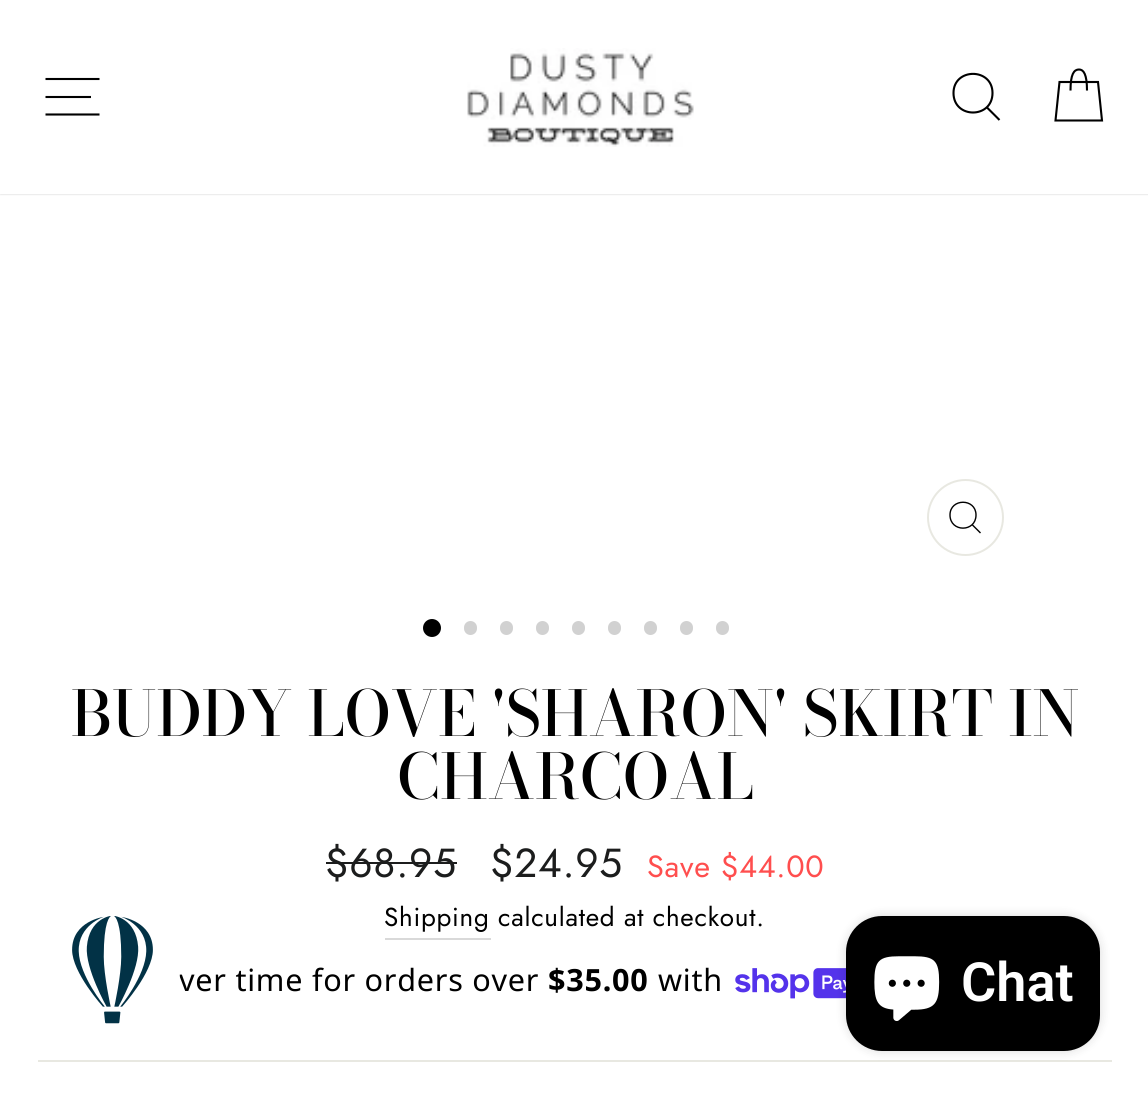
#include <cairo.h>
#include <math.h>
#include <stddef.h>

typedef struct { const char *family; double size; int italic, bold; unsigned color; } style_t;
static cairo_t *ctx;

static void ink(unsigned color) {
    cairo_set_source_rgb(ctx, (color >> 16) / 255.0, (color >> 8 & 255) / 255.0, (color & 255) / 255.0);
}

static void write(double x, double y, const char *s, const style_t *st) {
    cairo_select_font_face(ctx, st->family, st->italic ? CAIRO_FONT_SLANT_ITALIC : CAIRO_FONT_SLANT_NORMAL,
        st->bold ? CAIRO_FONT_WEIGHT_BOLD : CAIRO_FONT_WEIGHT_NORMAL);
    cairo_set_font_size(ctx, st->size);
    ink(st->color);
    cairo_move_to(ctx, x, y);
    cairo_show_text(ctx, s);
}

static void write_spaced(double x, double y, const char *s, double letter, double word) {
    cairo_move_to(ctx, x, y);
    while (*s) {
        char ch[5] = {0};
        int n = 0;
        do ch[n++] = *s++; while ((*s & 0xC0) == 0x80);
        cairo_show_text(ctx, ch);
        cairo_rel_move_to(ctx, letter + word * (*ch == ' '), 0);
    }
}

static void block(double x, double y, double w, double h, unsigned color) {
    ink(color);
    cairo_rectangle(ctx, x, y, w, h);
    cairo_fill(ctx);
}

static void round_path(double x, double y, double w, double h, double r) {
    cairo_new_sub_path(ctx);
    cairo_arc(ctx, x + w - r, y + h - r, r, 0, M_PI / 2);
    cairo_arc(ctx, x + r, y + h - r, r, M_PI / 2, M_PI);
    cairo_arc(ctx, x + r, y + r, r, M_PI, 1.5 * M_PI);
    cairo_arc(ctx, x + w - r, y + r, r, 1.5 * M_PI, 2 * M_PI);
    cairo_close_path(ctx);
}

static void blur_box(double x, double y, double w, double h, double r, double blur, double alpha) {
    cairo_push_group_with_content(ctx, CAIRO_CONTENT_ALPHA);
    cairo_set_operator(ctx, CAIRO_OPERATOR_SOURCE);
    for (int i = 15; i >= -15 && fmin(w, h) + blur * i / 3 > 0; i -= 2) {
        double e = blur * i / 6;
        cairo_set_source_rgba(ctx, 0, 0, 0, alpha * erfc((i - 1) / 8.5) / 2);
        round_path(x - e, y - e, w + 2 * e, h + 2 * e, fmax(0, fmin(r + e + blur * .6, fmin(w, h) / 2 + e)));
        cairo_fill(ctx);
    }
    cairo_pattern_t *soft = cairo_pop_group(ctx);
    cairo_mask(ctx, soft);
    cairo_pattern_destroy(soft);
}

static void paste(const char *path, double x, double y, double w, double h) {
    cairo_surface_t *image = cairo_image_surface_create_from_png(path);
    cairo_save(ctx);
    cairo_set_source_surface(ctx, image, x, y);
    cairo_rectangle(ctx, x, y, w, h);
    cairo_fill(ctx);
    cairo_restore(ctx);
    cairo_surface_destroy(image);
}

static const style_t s1 = {"Bodoni Moda Medium", 62.5, 0, 0, 0x000000};
static const style_t s2 = {"Roboto SemiBold", 54, 0, 0, 0xffffff};

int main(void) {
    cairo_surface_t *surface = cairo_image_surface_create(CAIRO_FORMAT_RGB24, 1148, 1097);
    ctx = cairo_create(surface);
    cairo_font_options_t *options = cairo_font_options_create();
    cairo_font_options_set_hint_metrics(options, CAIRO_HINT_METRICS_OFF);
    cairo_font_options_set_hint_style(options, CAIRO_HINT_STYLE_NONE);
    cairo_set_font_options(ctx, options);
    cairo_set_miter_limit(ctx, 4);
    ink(0xffffff);
    cairo_paint(ctx);
    ink(0x000000);
    blur_box(0, 0, 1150, 194, 0, 1, 0.2);
    block(0, 0, 1148, 194, 0xffffff);
    cairo_new_path(ctx);
    cairo_move_to(ctx, 45.5, 79);
    cairo_line_to(ctx, 99.5, 79);
    cairo_move_to(ctx, 45.5, 97);
    cairo_line_to(ctx, 91, 97);
    cairo_move_to(ctx, 45.5, 114.5);
    cairo_line_to(ctx, 99.5, 114.5);
    ink(0x000000);
    cairo_set_line_width(ctx, 2.1);
    cairo_stroke(ctx);
    paste("pic1.png", 467, 48, 227, 99);
    cairo_new_path(ctx);
    cairo_move_to(ctx, 992.5, 93);
    cairo_curve_to(ctx, 992.5, 119, 953.5, 119, 953.5, 93);
    cairo_curve_to(ctx, 953.5, 67.5, 992.5, 67.5, 992.5, 93);
    cairo_close_path(ctx);
    cairo_move_to(ctx, 999.5, 120);
    cairo_line_to(ctx, 987, 107.5);
    cairo_stroke(ctx);
    cairo_new_path(ctx);
    cairo_move_to(ctx, 1070.5, 90.5);
    cairo_curve_to(ctx, 1070.5, 74, 1074, 69.5, 1079, 69.5);
    cairo_curve_to(ctx, 1083.5, 69.5, 1087, 74, 1087, 90.5);
    cairo_move_to(ctx, 1059.5, 82);
    cairo_line_to(ctx, 1098, 82);
    cairo_line_to(ctx, 1102, 120.5);
    cairo_line_to(ctx, 1055.5, 120.5);
    cairo_close_path(ctx);
    cairo_stroke(ctx);
    cairo_arc(ctx, 965.5, 517.5, 37.5, 0, 2 * M_PI);
    ink(0xe8e8e1);
    cairo_set_line_width(ctx, 2);
    cairo_stroke(ctx);
    cairo_new_path(ctx);
    cairo_move_to(ctx, 976, 515);
    cairo_curve_to(ctx, 976, 532.5, 950, 532.5, 950, 515);
    cairo_curve_to(ctx, 950, 498, 976, 498, 976, 515);
    cairo_close_path(ctx);
    cairo_move_to(ctx, 980.5, 533);
    cairo_line_to(ctx, 972, 524.5);
    ink(0x000000);
    cairo_set_line_width(ctx, 1.4);
    cairo_stroke(ctx);
    cairo_arc(ctx, 432, 628, 9, 0, 2 * M_PI);
    cairo_fill(ctx);
    ink(0xd1d1d1);
    round_path(464, 621, 13, 14, 6.5);
    cairo_fill(ctx);
    round_path(500, 621, 13, 14, 6.5);
    cairo_fill(ctx);
    round_path(536, 621, 13, 14, 6.5);
    cairo_fill(ctx);
    round_path(572, 621, 13, 14, 6.5);
    cairo_fill(ctx);
    round_path(608, 621, 13, 14, 6.5);
    cairo_fill(ctx);
    round_path(644, 621, 13, 14, 6.5);
    cairo_fill(ctx);
    round_path(680, 621, 13, 14, 6.5);
    cairo_fill(ctx);
    round_path(716, 621, 13, 14, 6.5);
    cairo_fill(ctx);
    write(71, 736, "BUDDY LOVE 'SHARON' SKIRT IN", &s1);
    write(397, 799, "CHARCOAL", &s1);
    cairo_select_font_face(ctx, "Jost", CAIRO_FONT_SLANT_NORMAL, CAIRO_FONT_WEIGHT_NORMAL);
    cairo_set_font_size(ctx, 40.5);
    ink(0x1c1d1d);
    write_spaced(325, 877, "$68.95", 0.75, 0);
    block(326, 862, 131, 2, 0x1c1d1d);
    write_spaced(490, 877, "$24.95", 0.75, 0);
    cairo_set_font_size(ctx, 30.6);
    ink(0xff4e4e);
    write_spaced(647, 877, "Save $44.00", 0.75, 0);
    block(385, 938, 106, 2, 0xd9d9d9);
    cairo_set_font_size(ctx, 26);
    ink(0x000000);
    write_spaced(384, 926, "Shipping", 0.75, 0);
    write_spaced(498, 926, "calculated at checkout.", 0.75, 0);
    cairo_select_font_face(ctx, "Noto Sans", CAIRO_FONT_SLANT_NORMAL, CAIRO_FONT_WEIGHT_NORMAL);
    cairo_set_font_size(ctx, 30.6);
    write_spaced(179, 991, "ver time for orders over", 0.75, 0);
    cairo_select_font_face(ctx, "Noto Sans", CAIRO_FONT_SLANT_NORMAL, CAIRO_FONT_WEIGHT_BOLD);
    write_spaced(548, 991, "$35.00", 0.75, 0);
    cairo_select_font_face(ctx, "Noto Sans", CAIRO_FONT_SLANT_NORMAL, CAIRO_FONT_WEIGHT_NORMAL);
    write_spaced(658, 991, "with", 0.75, 0);
    paste("pic2.png", 735, 968, 111, 31);
    block(38, 1060, 1074, 2, 0xe8e8e1);
    ink(0xffffff);
    cairo_arc(ctx, 112.5, 969.5, 67.5, 0, 2 * M_PI);
    cairo_fill(ctx);
    paste("pic3.png", 72, 916, 81, 108);
    ink(0x000000);
    blur_box(846, 916, 254, 135, 36, 5.5, 0.15);
    ink(0x000000);
    round_path(846, 916, 254, 135, 36);
    cairo_fill(ctx);
    paste("pic4.png", 874, 956, 66, 65);
    write(961, 1001, "Chat", &s2);
    cairo_surface_write_to_png(surface, "screenshot.png");
    cairo_font_options_destroy(options);
    cairo_destroy(ctx);
    cairo_surface_destroy(surface);
    return 0;
}
